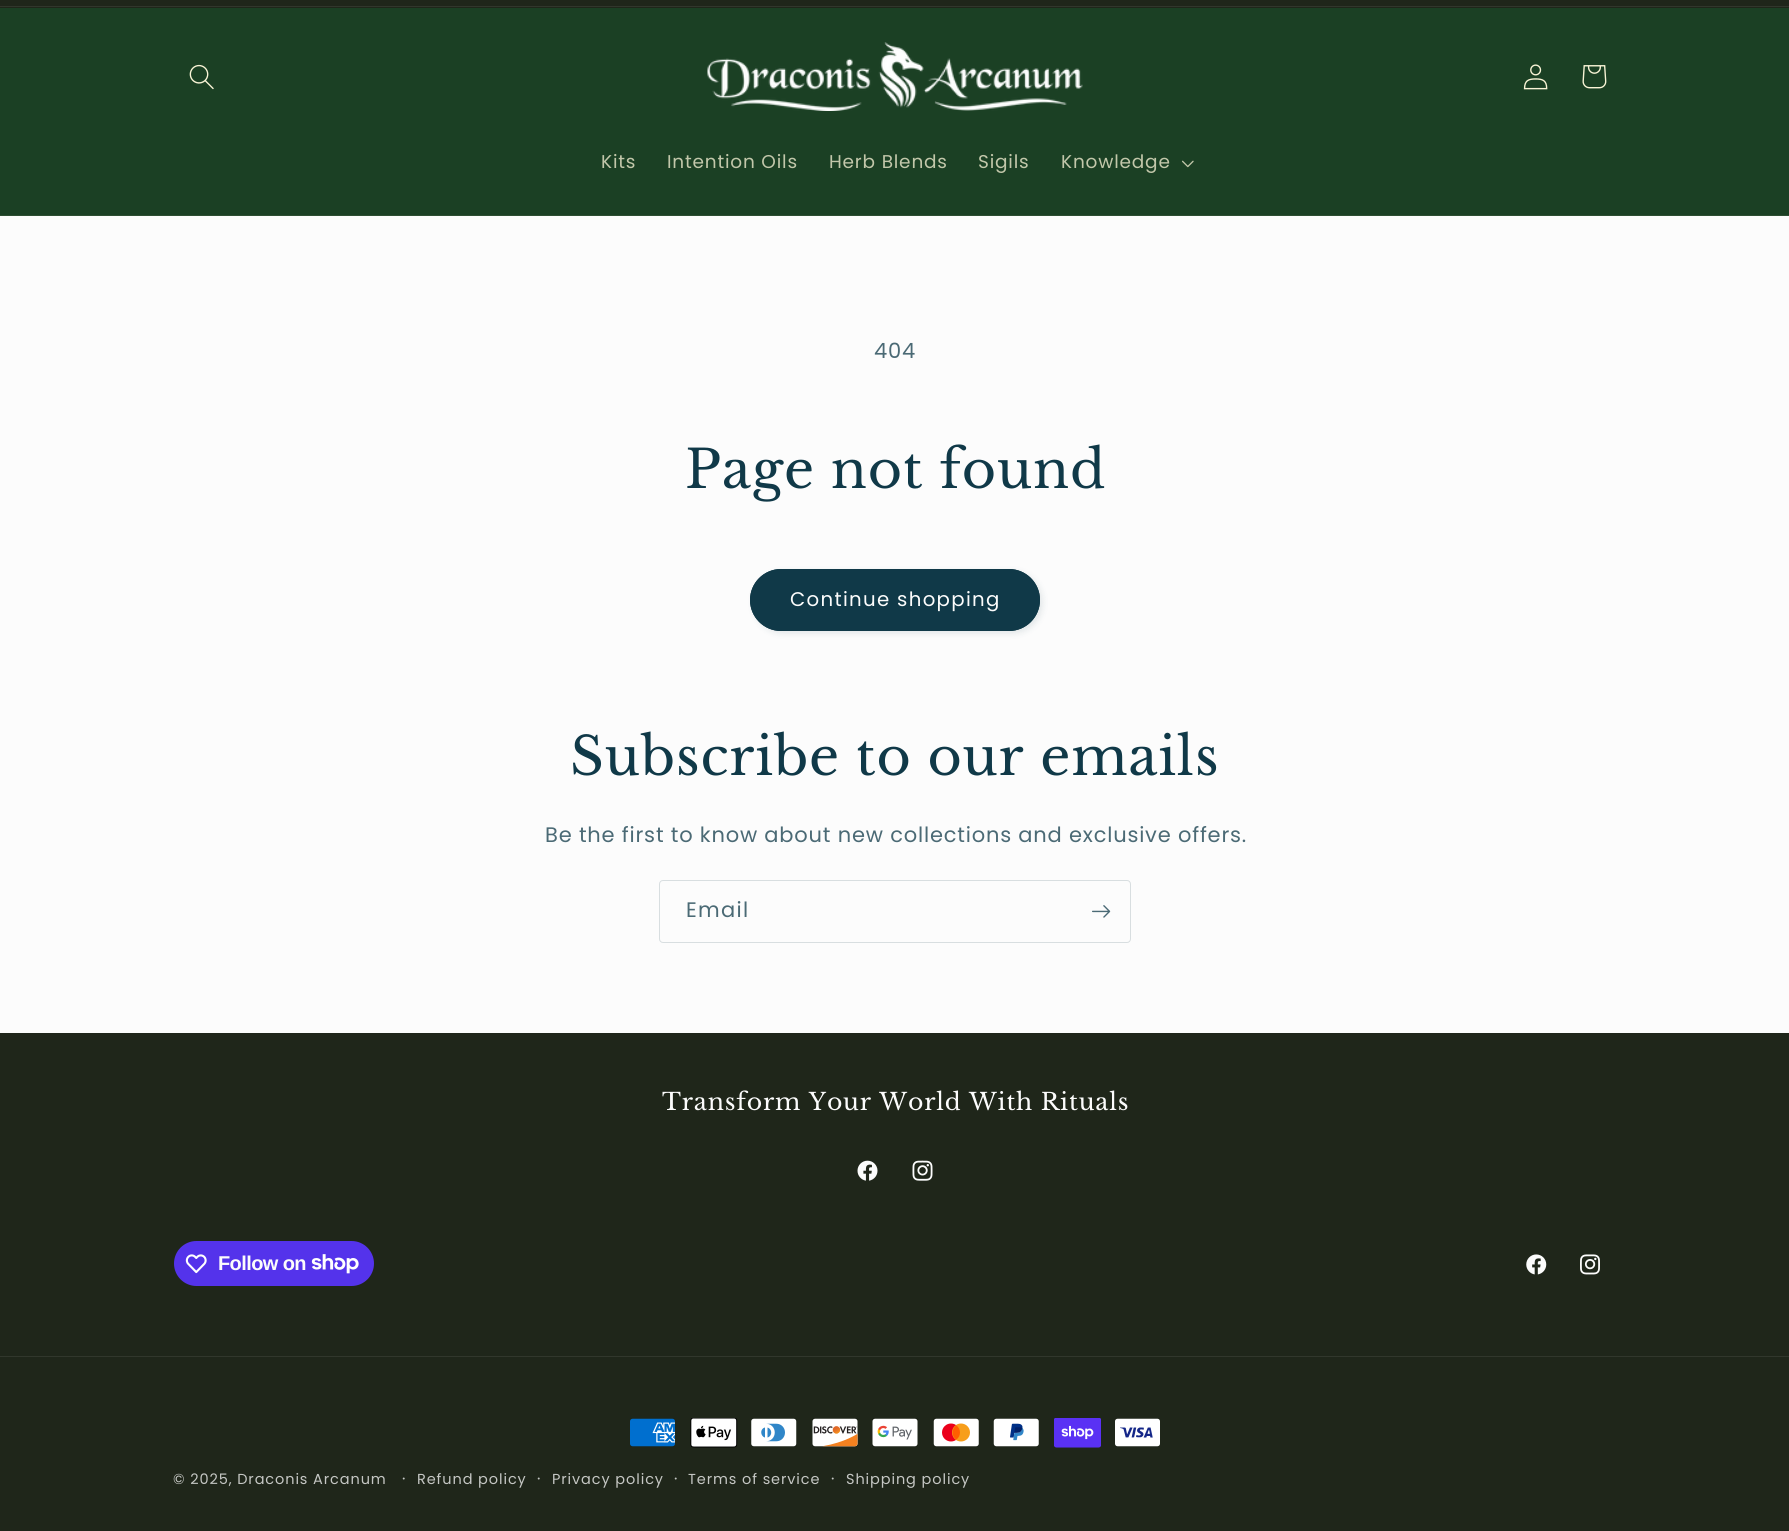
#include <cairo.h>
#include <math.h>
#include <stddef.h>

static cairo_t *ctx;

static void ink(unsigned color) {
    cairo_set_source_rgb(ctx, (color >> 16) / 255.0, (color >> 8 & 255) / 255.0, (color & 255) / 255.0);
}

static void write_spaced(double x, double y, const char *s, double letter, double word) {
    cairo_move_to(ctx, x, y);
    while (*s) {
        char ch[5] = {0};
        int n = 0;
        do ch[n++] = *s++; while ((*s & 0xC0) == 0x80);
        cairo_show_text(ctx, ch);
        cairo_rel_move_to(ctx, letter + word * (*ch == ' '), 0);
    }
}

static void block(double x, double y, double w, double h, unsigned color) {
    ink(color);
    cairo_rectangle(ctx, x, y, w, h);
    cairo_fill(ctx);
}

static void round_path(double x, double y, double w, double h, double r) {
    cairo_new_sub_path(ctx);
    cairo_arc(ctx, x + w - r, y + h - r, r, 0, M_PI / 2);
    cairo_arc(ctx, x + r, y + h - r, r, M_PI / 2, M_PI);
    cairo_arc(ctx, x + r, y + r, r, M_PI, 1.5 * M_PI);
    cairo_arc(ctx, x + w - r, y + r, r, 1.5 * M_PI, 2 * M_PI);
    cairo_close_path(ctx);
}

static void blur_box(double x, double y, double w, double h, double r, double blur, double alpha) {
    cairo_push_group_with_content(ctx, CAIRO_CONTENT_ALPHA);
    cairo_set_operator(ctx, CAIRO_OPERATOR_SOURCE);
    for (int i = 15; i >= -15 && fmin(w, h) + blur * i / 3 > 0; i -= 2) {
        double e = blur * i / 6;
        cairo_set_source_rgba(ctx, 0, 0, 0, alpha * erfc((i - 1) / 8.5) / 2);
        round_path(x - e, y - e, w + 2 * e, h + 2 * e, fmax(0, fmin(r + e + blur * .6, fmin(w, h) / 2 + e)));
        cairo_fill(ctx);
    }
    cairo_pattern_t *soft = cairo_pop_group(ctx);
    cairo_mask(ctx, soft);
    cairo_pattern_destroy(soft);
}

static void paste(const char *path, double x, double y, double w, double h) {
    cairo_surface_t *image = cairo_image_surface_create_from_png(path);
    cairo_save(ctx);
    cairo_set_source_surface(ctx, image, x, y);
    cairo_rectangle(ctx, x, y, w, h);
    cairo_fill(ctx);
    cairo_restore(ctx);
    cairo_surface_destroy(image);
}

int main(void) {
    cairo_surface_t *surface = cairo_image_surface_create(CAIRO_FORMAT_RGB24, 1789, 1531);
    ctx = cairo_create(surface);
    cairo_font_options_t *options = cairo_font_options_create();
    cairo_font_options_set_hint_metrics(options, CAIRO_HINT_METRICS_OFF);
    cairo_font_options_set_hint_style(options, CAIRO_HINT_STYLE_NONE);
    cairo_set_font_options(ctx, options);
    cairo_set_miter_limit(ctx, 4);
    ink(0xfcfcfc);
    cairo_paint(ctx);
    block(0, 0, 1789, 8, 0x1f261a);
    block(0, 6, 1789, 1, 0x31372c);
    block(0, 8, 1789, 207, 0x1b4024);
    block(0, 215, 1789, 1, 0x2d4e32);
    paste("pic1.png", 189, 64, 25, 26);
    paste("pic2.png", 707, 42, 376, 69);
    paste("pic3.png", 1523, 64, 25, 26);
    paste("pic4.png", 1582, 65, 25, 24);
    cairo_select_font_face(ctx, "Poppins", CAIRO_FONT_SLANT_NORMAL, CAIRO_FONT_WEIGHT_NORMAL);
    cairo_set_font_size(ctx, 18.5);
    ink(0xc2c7aa);
    write_spaced(601, 168, "Kits", 0.8, 0);
    write_spaced(667, 168, "Intention Oils", 0.8, 0);
    write_spaced(829, 168, "Herb Blends", 0.8, 0);
    write_spaced(978, 168, "Sigils", 0.8, 0);
    write_spaced(1061, 168, "Knowledge", 0.8, 0);
    paste("pic5.png", 1182, 160, 12, 8);
    cairo_set_font_size(ctx, 21);
    ink(0x4b6a75);
    write_spaced(874, 358, "404", 0.8, 0);
    cairo_select_font_face(ctx, "Libre Baskerville", CAIRO_FONT_SLANT_NORMAL, CAIRO_FONT_WEIGHT_NORMAL);
    cairo_set_font_size(ctx, 52.5);
    ink(0x103948);
    write_spaced(685, 488, "Page not found", 0.8, 0);
    ink(0x103948);
    blur_box(753, 571, 290, 63, 31.5, 3, 0.1);
    ink(0x103948);
    round_path(750, 569, 290, 62, 31);
    cairo_fill(ctx);
    round_path(750.5, 569.5, 289, 61, 30.5);
    cairo_set_line_width(ctx, 1);
    cairo_stroke(ctx);
    cairo_select_font_face(ctx, "Poppins", CAIRO_FONT_SLANT_NORMAL, CAIRO_FONT_WEIGHT_NORMAL);
    cairo_set_font_size(ctx, 19.75);
    ink(0xfcfcfc);
    write_spaced(790, 606, "Continue shopping", 1.3, 0);
    cairo_select_font_face(ctx, "Libre Baskerville", CAIRO_FONT_SLANT_NORMAL, CAIRO_FONT_WEIGHT_NORMAL);
    cairo_set_font_size(ctx, 52.5);
    ink(0x103948);
    write_spaced(570, 775, "Subscribe to our emails", 0.8, 0);
    cairo_select_font_face(ctx, "Poppins", CAIRO_FONT_SLANT_NORMAL, CAIRO_FONT_WEIGHT_NORMAL);
    cairo_set_font_size(ctx, 21);
    ink(0x4b6a75);
    write_spaced(545, 842, "Be the first to know about new collections and exclusive offers.", 0.8, 0);
    round_path(659.5, 880.5, 471, 62, 3.5);
    cairo_set_source_rgba(ctx, 0.063, 0.224, 0.282, 0.15);
    cairo_stroke(ctx);
    ink(0x4b6a75);
    write_spaced(686, 917, "Email", 1.3, 0);
    paste("pic6.png", 1092, 905, 19, 13);
    block(0, 1033, 1789, 498, 0x1f261a);
    cairo_select_font_face(ctx, "Libre Baskerville", CAIRO_FONT_SLANT_NORMAL, CAIRO_FONT_WEIGHT_NORMAL);
    cairo_set_font_size(ctx, 23.6);
    ink(0xfcfcfc);
    write_spaced(662, 1110, "Transform Your World With Rituals", 0.8, 0);
    paste("pic7.png", 857, 1160, 21, 21);
    paste("pic8.png", 912, 1160, 21, 21);
    ink(0x5433eb);
    round_path(174, 1241, 200, 45, 22.5);
    cairo_fill(ctx);
    paste("pic9.png", 185, 1254, 22, 20);
    cairo_select_font_face(ctx, "Liberation Sans", CAIRO_FONT_SLANT_NORMAL, CAIRO_FONT_WEIGHT_BOLD);
    cairo_set_font_size(ctx, 20);
    ink(0xfcfcfc);
    write_spaced(218, 1270, "Follow on", -0.6, 0);
    paste("pic10.png", 311, 1254, 48, 20);
    paste("pic11.png", 1526, 1254, 21, 21);
    paste("pic12.png", 1580, 1254, 20, 21);
    block(0, 1356, 1789, 1, 0x31372c);
    paste("pic13.png", 630, 1418, 45, 29);
    paste("pic14.png", 690, 1418, 48, 30);
    paste("pic15.png", 751, 1418, 46, 29);
    paste("pic16.png", 812, 1418, 46, 29);
    paste("pic17.png", 872, 1418, 46, 29);
    paste("pic18.png", 933, 1418, 46, 29);
    paste("pic19.png", 993, 1418, 46, 29);
    paste("pic20.png", 1054, 1418, 47, 30);
    paste("pic21.png", 1115, 1418, 45, 29);
    cairo_select_font_face(ctx, "Poppins", CAIRO_FONT_SLANT_NORMAL, CAIRO_FONT_WEIGHT_NORMAL);
    cairo_set_font_size(ctx, 14.5);
    ink(0xc5c7c4);
    write_spaced(173, 1484, "© 2025, Draconis Arcanum", 0.9, 0);
    cairo_set_font_size(ctx, 16);
    write_spaced(402, 1484, "·", 0.9, 0);
    cairo_set_font_size(ctx, 14.5);
    write_spaced(417, 1484, "Refund policy", 0.9, 0);
    cairo_set_font_size(ctx, 16);
    write_spaced(537, 1484, "·", 0.9, 0);
    cairo_set_font_size(ctx, 14.5);
    write_spaced(552, 1484, "Privacy policy", 0.9, 0);
    cairo_set_font_size(ctx, 16);
    write_spaced(674, 1484, "·", 0.9, 0);
    cairo_set_font_size(ctx, 14.5);
    write_spaced(688, 1484, "Terms of service", 0.9, 0);
    cairo_set_font_size(ctx, 16);
    write_spaced(831, 1484, "·", 0.9, 0);
    cairo_set_font_size(ctx, 14.5);
    write_spaced(846, 1484, "Shipping policy", 0.9, 0);
    cairo_surface_write_to_png(surface, "screenshot.png");
    cairo_font_options_destroy(options);
    cairo_destroy(ctx);
    cairo_surface_destroy(surface);
    return 0;
}
